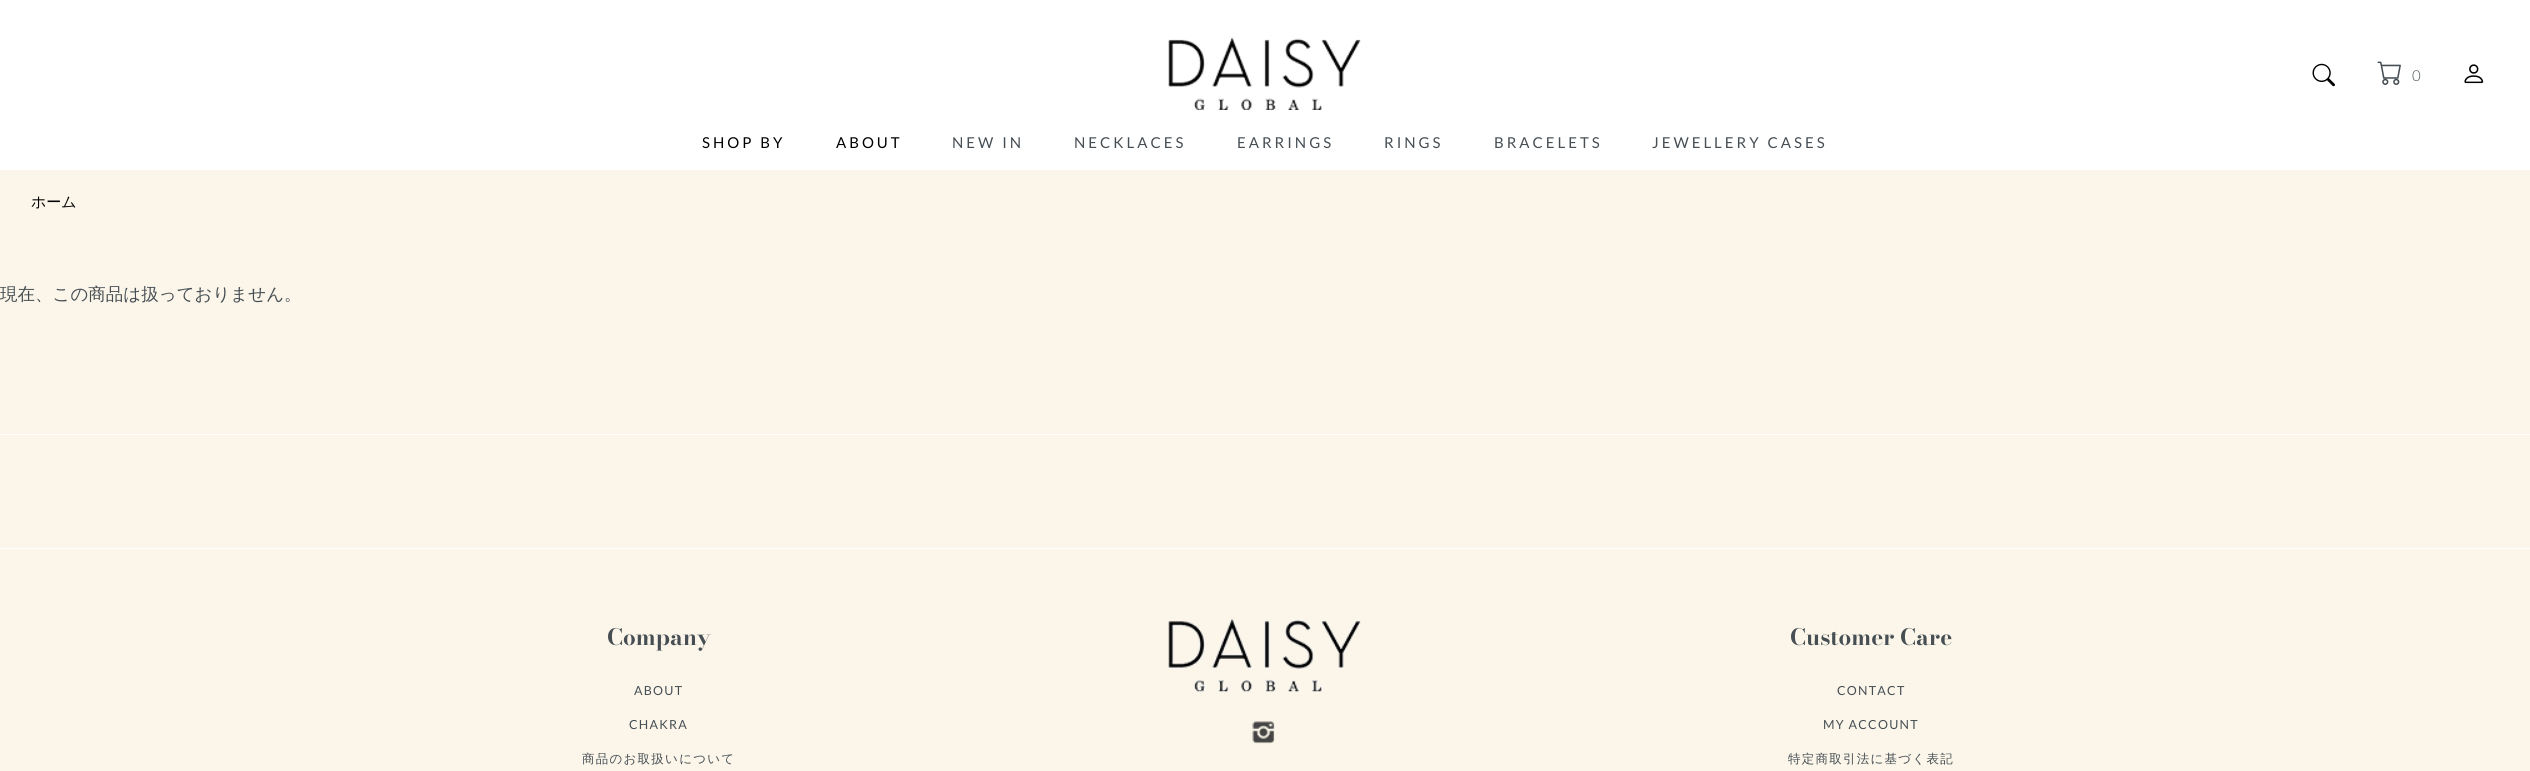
#include <cairo.h>
#include <math.h>
#include <stddef.h>

typedef struct { const char *family; double size; int italic, bold; unsigned color; } style_t;
static cairo_t *ctx;

static void ink(unsigned color) {
    cairo_set_source_rgb(ctx, (color >> 16) / 255.0, (color >> 8 & 255) / 255.0, (color & 255) / 255.0);
}

static void write(double x, double y, const char *s, const style_t *st) {
    cairo_select_font_face(ctx, st->family, st->italic ? CAIRO_FONT_SLANT_ITALIC : CAIRO_FONT_SLANT_NORMAL,
        st->bold ? CAIRO_FONT_WEIGHT_BOLD : CAIRO_FONT_WEIGHT_NORMAL);
    cairo_set_font_size(ctx, st->size);
    ink(st->color);
    cairo_move_to(ctx, x, y);
    cairo_show_text(ctx, s);
}

static void write_spaced(double x, double y, const char *s, double letter, double word) {
    cairo_move_to(ctx, x, y);
    while (*s) {
        char ch[5] = {0};
        int n = 0;
        do ch[n++] = *s++; while ((*s & 0xC0) == 0x80);
        cairo_show_text(ctx, ch);
        cairo_rel_move_to(ctx, letter + word * (*ch == ' '), 0);
    }
}

static void block(double x, double y, double w, double h, unsigned color) {
    ink(color);
    cairo_rectangle(ctx, x, y, w, h);
    cairo_fill(ctx);
}

static void paste(const char *path, double x, double y, double w, double h) {
    cairo_surface_t *image = cairo_image_surface_create_from_png(path);
    cairo_save(ctx);
    cairo_set_source_surface(ctx, image, x, y);
    cairo_rectangle(ctx, x, y, w, h);
    cairo_fill(ctx);
    cairo_restore(ctx);
    cairo_surface_destroy(image);
}

static const style_t s1 = {"Lato Light", 15, 0, 0, 0x464e54};
static const style_t s2 = {"WenQuanYi Zen Hei Medium", 15, 0, 0, 0x000000};
static const style_t s3 = {"WenQuanYi Zen Hei Medium", 17.5, 0, 0, 0x464e54};
static const style_t s4 = {"Bodoni Moda", 22.5, 0, 1, 0x464e54};

int main(void) {
    cairo_surface_t *surface = cairo_image_surface_create(CAIRO_FORMAT_RGB24, 2530, 771);
    ctx = cairo_create(surface);
    cairo_font_options_t *options = cairo_font_options_create();
    cairo_font_options_set_hint_metrics(options, CAIRO_HINT_METRICS_OFF);
    cairo_font_options_set_hint_style(options, CAIRO_HINT_STYLE_NONE);
    cairo_set_font_options(ctx, options);
    cairo_set_miter_limit(ctx, 4);
    ink(0xffffff);
    cairo_paint(ctx);
    paste("pic1.png", 1168, 37, 193, 73);
    paste("pic2.png", 2312, 63, 23, 24);
    paste("pic3.png", 2377, 61, 24, 24);
    write(2412, 81, "0", &s1);
    paste("pic4.png", 2464, 64, 20, 20);
    cairo_select_font_face(ctx, "Lato", CAIRO_FONT_SLANT_NORMAL, CAIRO_FONT_WEIGHT_NORMAL);
    ink(0x000000);
    write_spaced(702, 148, "SHOP BY", 3, 0);
    write_spaced(836, 148, "ABOUT", 3, 0);
    ink(0x464e54);
    write_spaced(952, 148, "NEW IN", 3, 0);
    write_spaced(1074, 148, "NECKLACES", 3, 0);
    write_spaced(1237, 148, "EARRINGS", 3, 0);
    write_spaced(1384, 148, "RINGS", 3, 0);
    write_spaced(1494, 148, "BRACELETS", 3, 0);
    write_spaced(1652, 148, "JEWELLERY CASES", 3, 0);
    block(0, 170, 2530, 378, 0xfbf6e9);
    write(31, 207, "ホーム", &s2);
    block(0, 434, 2530, 1, 0xffffff);
    write(0, 300, "現在、この商品は扱っておりません。", &s3);
    block(0, 549, 2530, 222, 0xfbf6e9);
    write(607, 645, "Company", &s4);
    cairo_select_font_face(ctx, "Lato", CAIRO_FONT_SLANT_NORMAL, CAIRO_FONT_WEIGHT_NORMAL);
    cairo_set_font_size(ctx, 12.5);
    write_spaced(634, 695, "ABOUT", 1.25, 0);
    write_spaced(629, 729, "CHAKRA", 1.25, 0);
    cairo_select_font_face(ctx, "WenQuanYi Zen Hei Medium", CAIRO_FONT_SLANT_NORMAL, CAIRO_FONT_WEIGHT_NORMAL);
    write_spaced(582, 763, "商品のお取扱いについて", 1.25, 0);
    paste("pic5.png", 1168, 618, 193, 74);
    paste("pic6.png", 1252, 721, 23, 23);
    write(1790, 645, "Customer Care", &s4);
    cairo_select_font_face(ctx, "Lato", CAIRO_FONT_SLANT_NORMAL, CAIRO_FONT_WEIGHT_NORMAL);
    cairo_set_font_size(ctx, 12.5);
    write_spaced(1837, 695, "CONTACT", 1.25, 0);
    write_spaced(1823, 729, "MY ACCOUNT", 1.25, 0);
    cairo_select_font_face(ctx, "WenQuanYi Zen Hei Medium", CAIRO_FONT_SLANT_NORMAL, CAIRO_FONT_WEIGHT_NORMAL);
    write_spaced(1788, 763, "特定商取引法に基づく表記", 1.25, 0);
    cairo_surface_write_to_png(surface, "screenshot.png");
    cairo_font_options_destroy(options);
    cairo_destroy(ctx);
    cairo_surface_destroy(surface);
    return 0;
}
